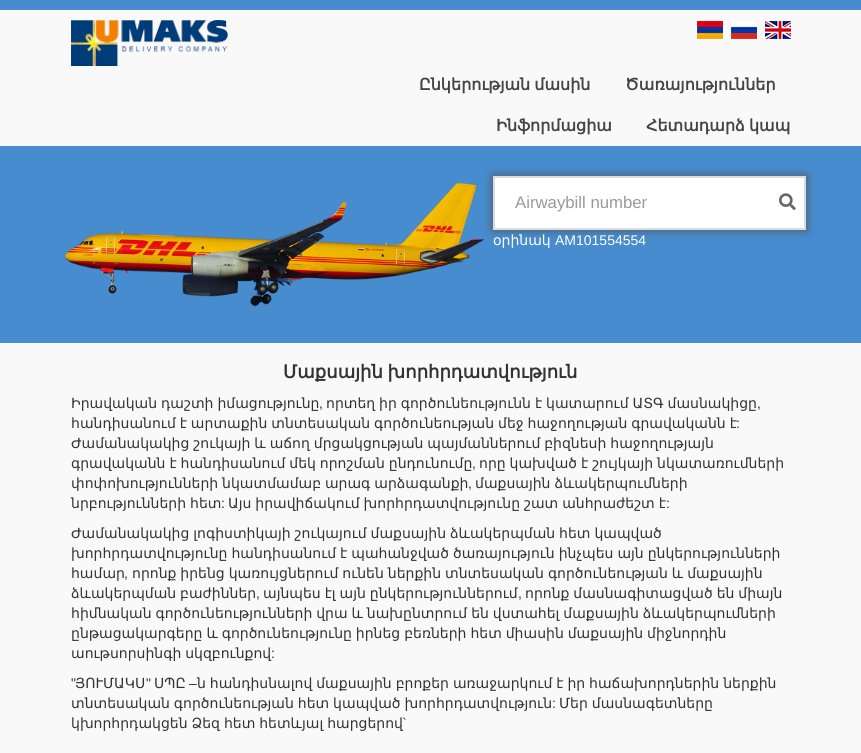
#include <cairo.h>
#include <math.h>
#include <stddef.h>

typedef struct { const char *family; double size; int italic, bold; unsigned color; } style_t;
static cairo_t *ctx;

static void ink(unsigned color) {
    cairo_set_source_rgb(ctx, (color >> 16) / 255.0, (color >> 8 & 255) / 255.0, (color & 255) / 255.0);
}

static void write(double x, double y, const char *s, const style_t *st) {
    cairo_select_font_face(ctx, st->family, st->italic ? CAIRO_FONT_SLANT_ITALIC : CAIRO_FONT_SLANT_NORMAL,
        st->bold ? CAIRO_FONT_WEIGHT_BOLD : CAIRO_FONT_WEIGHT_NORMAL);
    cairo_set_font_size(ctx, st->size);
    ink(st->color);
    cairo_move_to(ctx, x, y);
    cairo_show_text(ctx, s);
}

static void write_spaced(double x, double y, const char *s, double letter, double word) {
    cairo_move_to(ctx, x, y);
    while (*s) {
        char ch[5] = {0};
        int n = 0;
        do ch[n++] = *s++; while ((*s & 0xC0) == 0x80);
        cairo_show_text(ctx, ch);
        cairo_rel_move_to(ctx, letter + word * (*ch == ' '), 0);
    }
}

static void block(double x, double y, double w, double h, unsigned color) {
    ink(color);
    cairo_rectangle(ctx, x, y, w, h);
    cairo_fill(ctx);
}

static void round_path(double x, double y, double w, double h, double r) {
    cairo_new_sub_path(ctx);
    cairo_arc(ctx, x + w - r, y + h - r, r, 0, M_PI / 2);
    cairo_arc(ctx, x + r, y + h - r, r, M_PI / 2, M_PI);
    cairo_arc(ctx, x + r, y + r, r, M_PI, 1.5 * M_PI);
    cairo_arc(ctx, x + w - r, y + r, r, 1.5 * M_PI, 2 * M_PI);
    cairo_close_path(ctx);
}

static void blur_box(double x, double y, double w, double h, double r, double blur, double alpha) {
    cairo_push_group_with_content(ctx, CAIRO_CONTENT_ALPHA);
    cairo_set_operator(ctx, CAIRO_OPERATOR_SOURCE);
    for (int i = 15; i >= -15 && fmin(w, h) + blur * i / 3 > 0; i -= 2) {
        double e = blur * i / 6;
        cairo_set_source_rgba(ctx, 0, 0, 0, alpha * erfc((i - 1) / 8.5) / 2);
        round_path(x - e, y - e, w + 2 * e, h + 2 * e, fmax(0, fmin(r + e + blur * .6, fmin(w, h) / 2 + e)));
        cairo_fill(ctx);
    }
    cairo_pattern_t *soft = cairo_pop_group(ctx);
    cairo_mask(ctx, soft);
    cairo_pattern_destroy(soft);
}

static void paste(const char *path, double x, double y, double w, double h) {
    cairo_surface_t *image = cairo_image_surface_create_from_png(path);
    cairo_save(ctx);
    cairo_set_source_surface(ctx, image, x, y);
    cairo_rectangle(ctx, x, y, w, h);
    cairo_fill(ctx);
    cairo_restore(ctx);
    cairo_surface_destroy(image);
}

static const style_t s1 = {"DejaVu Sans", 16, 0, 1, 0x444444};
static const style_t s2 = {"Liberation Sans", 16.75, 0, 0, 0x999999};
static const style_t s3 = {"DejaVu Sans", 14, 0, 0, 0xffffff};
static const style_t s4 = {"Liberation Sans", 14, 0, 0, 0xffffff};
static const style_t s5 = {"Liberation Sans", 14, 0, 0, 0x333333};
static const style_t s6 = {"DejaVu Sans", 14, 0, 0, 0x333333};

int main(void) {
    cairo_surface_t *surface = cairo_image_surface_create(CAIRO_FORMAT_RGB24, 861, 753);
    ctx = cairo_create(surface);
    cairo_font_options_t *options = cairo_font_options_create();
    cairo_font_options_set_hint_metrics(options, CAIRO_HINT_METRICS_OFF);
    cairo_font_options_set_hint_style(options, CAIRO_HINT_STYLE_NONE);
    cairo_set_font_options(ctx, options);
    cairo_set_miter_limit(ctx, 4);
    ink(0xf9f9f9);
    cairo_paint(ctx);
    block(0, 0, 861, 10, 0x468ccf);
    paste("pic1.png", 71, 20, 157, 46);
    paste("pic2.png", 697, 20, 26, 19);
    paste("pic3.png", 731, 21, 26, 18);
    paste("pic4.png", 765, 21, 26, 18);
    cairo_select_font_face(ctx, "DejaVu Sans", CAIRO_FONT_SLANT_NORMAL, CAIRO_FONT_WEIGHT_BOLD);
    cairo_set_font_size(ctx, 16);
    ink(0x444444);
    write_spaced(419, 90, "Ընկերության մասին", 0, -1);
    write(625, 90, "Ծառայություններ", &s1);
    write(496, 131, "Ինֆորմացիա", &s1);
    write_spaced(646, 131, "Հետադարձ կապ", 0, -1);
    block(0, 146, 861, 197, 0x468ccf);
    paste("pic5.png", 64, 182, 421, 125);
    ink(0x555555);
    blur_box(493, 176, 313, 54, 0, 5, 1);
    ink(0xffffff);
    cairo_rectangle(ctx, 494, 177, 311, 52);
    cairo_fill_preserve(ctx);
    ink(0xdcdcdc);
    cairo_stroke(ctx);
    write(515, 208, "Airwaybill number", &s2);
    paste("pic6.png", 779, 193, 17, 17);
    write(493, 245, "օրինակ", &s3);
    write(555, 245, "AM101554554", &s4);
    cairo_select_font_face(ctx, "DejaVu Sans", CAIRO_FONT_SLANT_NORMAL, CAIRO_FONT_WEIGHT_BOLD);
    cairo_set_font_size(ctx, 18);
    ink(0x333333);
    write_spaced(283, 378, "Մաքսային խորհրդատվություն", 0, -1);
    cairo_select_font_face(ctx, "DejaVu Sans", CAIRO_FONT_SLANT_NORMAL, CAIRO_FONT_WEIGHT_NORMAL);
    cairo_set_font_size(ctx, 14);
    write_spaced(71, 408, "Իրավական դաշտի իմացությունը", 0, -0.5);
    write(319, 408, ",", &s5);
    cairo_select_font_face(ctx, "DejaVu Sans", CAIRO_FONT_SLANT_NORMAL, CAIRO_FONT_WEIGHT_NORMAL);
    write_spaced(326, 408, "որտեղ իր գործունեությունն է կատարում ԱՏԳ մասնակիցը", 0, -0.5);
    write(757, 408, ",", &s5);
    cairo_select_font_face(ctx, "DejaVu Sans", CAIRO_FONT_SLANT_NORMAL, CAIRO_FONT_WEIGHT_NORMAL);
    write_spaced(71, 428, "հանդիսանում է արտաքին տնտեսական գործունեության մեջ հաջողության գրավականն է", 0, -0.5);
    write(736, 428, ":", &s5);
    cairo_select_font_face(ctx, "DejaVu Sans", CAIRO_FONT_SLANT_NORMAL, CAIRO_FONT_WEIGHT_NORMAL);
    write_spaced(71, 448, "Ժամանակակից շուկայի և աճող մրցակցության պայմաններում բիզնեսի հաջողությայն", 0, -0.5);
    write_spaced(71, 468, "գրավականն է հանդիսանում մեկ որոշման ընդունումը", 0, -0.5);
    write(472, 468, ",", &s5);
    cairo_select_font_face(ctx, "DejaVu Sans", CAIRO_FONT_SLANT_NORMAL, CAIRO_FONT_WEIGHT_NORMAL);
    write_spaced(479, 468, "որը կախված է շույկայի նկատառումների", 0, -0.5);
    write_spaced(71, 488, "փոփոխությունների նկատմամաբ արագ արձագանքի", 0, -0.5);
    write(468, 488, ",", &s5);
    cairo_select_font_face(ctx, "DejaVu Sans", CAIRO_FONT_SLANT_NORMAL, CAIRO_FONT_WEIGHT_NORMAL);
    write_spaced(475, 488, "մաքսային ձևակերպումների", 0, -0.5);
    write_spaced(71, 508, "նրբությունների հետ", 0, -0.5);
    write(221, 508, ":", &s5);
    cairo_select_font_face(ctx, "DejaVu Sans", CAIRO_FONT_SLANT_NORMAL, CAIRO_FONT_WEIGHT_NORMAL);
    write_spaced(228, 508, "Այս իրավիճակում խորհրդատվությունը շատ անհրաժեշտ է", 0, -0.5);
    write(666, 508, ":", &s5);
    cairo_select_font_face(ctx, "DejaVu Sans", CAIRO_FONT_SLANT_NORMAL, CAIRO_FONT_WEIGHT_NORMAL);
    write_spaced(71, 538, "Ժամանակակից լոգիստիկայի շուկայում մաքսային ձևակերպման հետ կապված", 0, -0.5);
    write_spaced(71, 558, "խորհրդատվությունը հանդիսանում է պահանջված ծառայություն ինչպես այն ընկերությունների", 0, -0.5);
    write(71, 578, "համար", &s6);
    write(124, 578, ",", &s5);
    cairo_select_font_face(ctx, "DejaVu Sans", CAIRO_FONT_SLANT_NORMAL, CAIRO_FONT_WEIGHT_NORMAL);
    write_spaced(132, 578, "որոնք իրենց կառույցներում ունեն ներքին տնտեսական գործունեության և մաքսային", 0, -0.5);
    write_spaced(71, 598, "ձևակերպման բաժիններ", 0, -0.5);
    write(256, 598, ",", &s5);
    cairo_select_font_face(ctx, "DejaVu Sans", CAIRO_FONT_SLANT_NORMAL, CAIRO_FONT_WEIGHT_NORMAL);
    write_spaced(263, 598, "այնպես էլ այն ընկերություններում", 0, -0.5);
    write(518, 598, ",", &s5);
    cairo_select_font_face(ctx, "DejaVu Sans", CAIRO_FONT_SLANT_NORMAL, CAIRO_FONT_WEIGHT_NORMAL);
    write_spaced(525, 598, "որոնք մասնագիտացված են միայն", 0, -0.5);
    write_spaced(71, 618, "հիմնական գործունեությունների վրա և նախընտրում են վստահել մաքսային ձևակերպումների", 0, -0.5);
    write_spaced(71, 638, "ընթացակարգերը և գործունեությունը իրնեց բեռների հետ միասին մաքսային միջնորդին", 0, -0.5);
    write_spaced(71, 658, "աութսորսինգի սկզբունքով", 0, -0.5);
    write(271, 658, ":", &s5);
    write(71, 688, "\"", &s5);
    write(75, 688, "ՅՈՒՄԱԿՍ", &s6);
    write(146, 688, "\"", &s5);
    write(154, 688, "ՍՊԸ", &s6);
    write(189, 688, "–", &s5);
    cairo_select_font_face(ctx, "DejaVu Sans", CAIRO_FONT_SLANT_NORMAL, CAIRO_FONT_WEIGHT_NORMAL);
    write_spaced(197, 688, "ն հանդիսնալով մաքսային բրոքեր առաջարկում է իր հաճախորդներին ներքին", 0, -0.5);
    write_spaced(71, 708, "տնտեսական գործունեության հետ կապված խորհրդատվություն", 0, -0.5);
    write(552, 708, ":", &s5);
    cairo_select_font_face(ctx, "DejaVu Sans", CAIRO_FONT_SLANT_NORMAL, CAIRO_FONT_WEIGHT_NORMAL);
    write_spaced(559, 708, "Մեր մասնագետները", 0, -0.5);
    write_spaced(71, 728, "կխորհրդակցեն Ձեզ հետ հետևյալ հարցերով", 0, -0.5);
    write(402, 728, "`", &s5);
    cairo_surface_write_to_png(surface, "screenshot.png");
    cairo_font_options_destroy(options);
    cairo_destroy(ctx);
    cairo_surface_destroy(surface);
    return 0;
}
